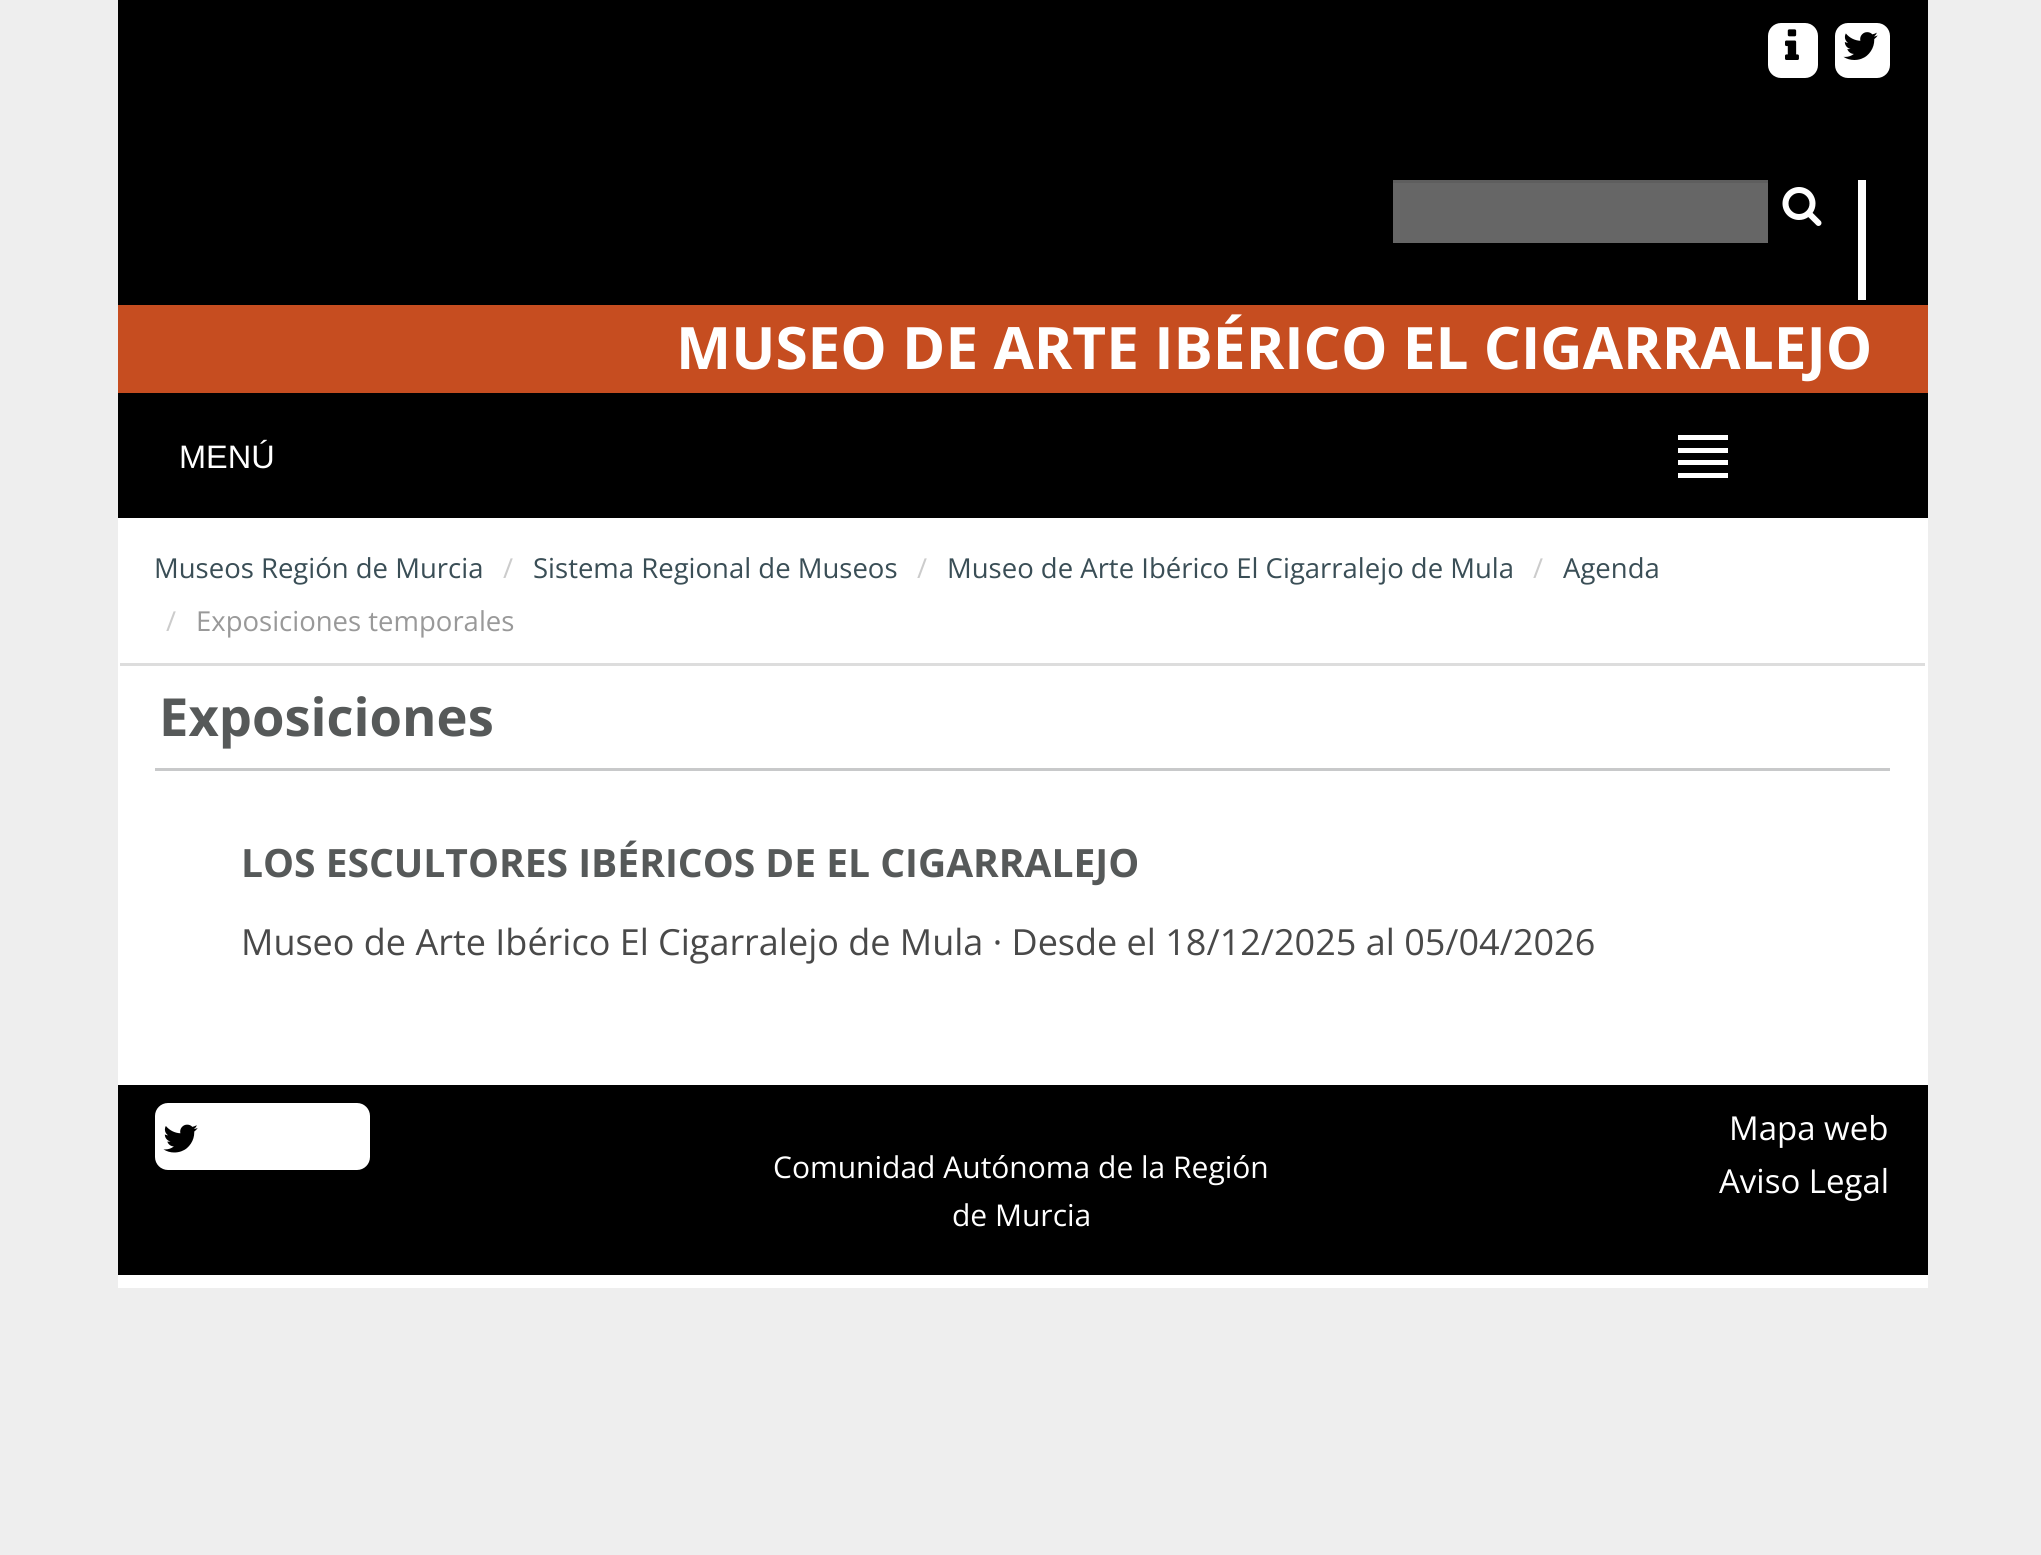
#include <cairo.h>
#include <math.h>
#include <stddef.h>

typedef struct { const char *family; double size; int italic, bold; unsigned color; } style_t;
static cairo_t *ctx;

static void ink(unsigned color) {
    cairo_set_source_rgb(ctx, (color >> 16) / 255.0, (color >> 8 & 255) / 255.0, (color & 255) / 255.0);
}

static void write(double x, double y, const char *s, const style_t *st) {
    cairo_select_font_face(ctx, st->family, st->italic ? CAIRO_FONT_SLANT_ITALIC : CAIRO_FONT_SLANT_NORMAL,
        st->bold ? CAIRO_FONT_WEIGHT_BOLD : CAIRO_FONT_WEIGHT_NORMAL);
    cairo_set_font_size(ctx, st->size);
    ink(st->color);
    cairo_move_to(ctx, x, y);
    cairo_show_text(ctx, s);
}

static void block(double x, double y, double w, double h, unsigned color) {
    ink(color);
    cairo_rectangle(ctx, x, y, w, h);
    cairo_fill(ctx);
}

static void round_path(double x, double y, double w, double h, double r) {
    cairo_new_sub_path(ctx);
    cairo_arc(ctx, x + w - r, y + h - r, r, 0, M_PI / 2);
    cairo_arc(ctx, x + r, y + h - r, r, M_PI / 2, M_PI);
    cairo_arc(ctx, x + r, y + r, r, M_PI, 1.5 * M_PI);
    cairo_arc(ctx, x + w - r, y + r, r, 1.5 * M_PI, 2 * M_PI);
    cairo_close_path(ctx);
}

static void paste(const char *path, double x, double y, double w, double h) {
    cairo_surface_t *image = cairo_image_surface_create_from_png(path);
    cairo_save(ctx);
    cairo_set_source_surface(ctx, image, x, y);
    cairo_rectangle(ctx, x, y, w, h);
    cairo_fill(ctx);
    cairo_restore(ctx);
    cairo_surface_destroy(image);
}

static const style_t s1 = {"Open Sans", 58.5, 0, 1, 0xffffff};
static const style_t s2 = {"Liberation Sans", 32.5, 0, 0, 0xffffff};
static const style_t s3 = {"Open Sans", 27.5, 0, 0, 0x3a4e56};
static const style_t s4 = {"Open Sans", 27.5, 0, 0, 0xcccccc};
static const style_t s5 = {"Open Sans", 27.5, 0, 0, 0x999999};
static const style_t s6 = {"Open Sans", 52.5, 0, 1, 0x565959};
static const style_t s7 = {"Open Sans", 39, 0, 1, 0x565959};
static const style_t s8 = {"Open Sans", 36, 0, 0, 0x494949};
static const style_t s9 = {"Open Sans", 30, 0, 0, 0xffffff};
static const style_t s10 = {"Open Sans", 33, 0, 0, 0xffffff};

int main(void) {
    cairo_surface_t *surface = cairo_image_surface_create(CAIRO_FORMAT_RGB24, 2041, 1555);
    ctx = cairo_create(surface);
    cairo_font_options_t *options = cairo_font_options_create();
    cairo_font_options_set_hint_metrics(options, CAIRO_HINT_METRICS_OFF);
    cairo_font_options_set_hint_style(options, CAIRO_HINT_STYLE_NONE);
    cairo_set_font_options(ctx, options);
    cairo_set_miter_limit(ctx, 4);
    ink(0xeeeeee);
    cairo_paint(ctx);
    block(118, 0, 1810, 305, 0x000000);
    ink(0xffffff);
    round_path(1768, 23, 50, 55, 13);
    cairo_fill(ctx);
    paste("pic1.png", 1785, 29, 14, 31);
    round_path(1835, 23, 55, 55, 13);
    cairo_fill(ctx);
    paste("pic2.png", 1843, 32, 35, 28);
    block(1858, 180, 8, 120, 0xffffff);
    block(1393, 183, 375, 60, 0x666666);
    block(1393, 180, 375, 3, 0x5e5e5e);
    paste("pic3.png", 1782, 187, 40, 39);
    block(118, 518, 1810, 770, 0xffffff);
    block(118, 305, 1810, 88, 0xc64d20);
    write(676, 369, "MUSEO DE ARTE IBÉRICO EL CIGARRALEJO", &s1);
    block(118, 393, 1810, 125, 0x000000);
    write(179, 468, "MENÚ", &s2);
    block(1678, 435, 50, 5, 0xffffff);
    block(1678, 448, 50, 5, 0xffffff);
    block(1678, 460, 50, 5, 0xffffff);
    block(1678, 473, 50, 5, 0xffffff);
    block(120, 663, 1805, 3, 0xdddddd);
    write(154, 578, "Museos Región de Murcia", &s3);
    write(503, 578, "/", &s4);
    write(533, 578, "Sistema Regional de Museos", &s3);
    write(917, 578, "/", &s4);
    write(947, 578, "Museo de Arte Ibérico El Cigarralejo de Mula", &s3);
    write(1533, 578, "/", &s4);
    write(1563, 578, "Agenda", &s3);
    write(166, 631, "/", &s4);
    write(196, 631, "Exposiciones temporales", &s5);
    block(155, 768, 1735, 3, 0xc8c9ca);
    write(159, 736, "Exposiciones", &s6);
    write(241, 877, "LOS ESCULTORES IBÉRICOS DE EL CIGARRALEJO", &s7);
    write(241, 955, "Museo de Arte Ibérico El Cigarralejo de Mula · Desde el 18/12/2025 al 05/04/2026", &s8);
    block(118, 1085, 1810, 190, 0x000000);
    ink(0xffffff);
    round_path(155, 1103, 215, 67, 13);
    cairo_fill(ctx);
    paste("pic4.png", 163, 1124, 35, 29);
    write(773, 1178, "Comunidad Autónoma de la Región", &s9);
    write(952, 1226, "de Murcia", &s9);
    write(1729, 1140, "Mapa web", &s10);
    write(1719, 1193, "Aviso Legal", &s10);
    cairo_surface_write_to_png(surface, "screenshot.png");
    cairo_font_options_destroy(options);
    cairo_destroy(ctx);
    cairo_surface_destroy(surface);
    return 0;
}
